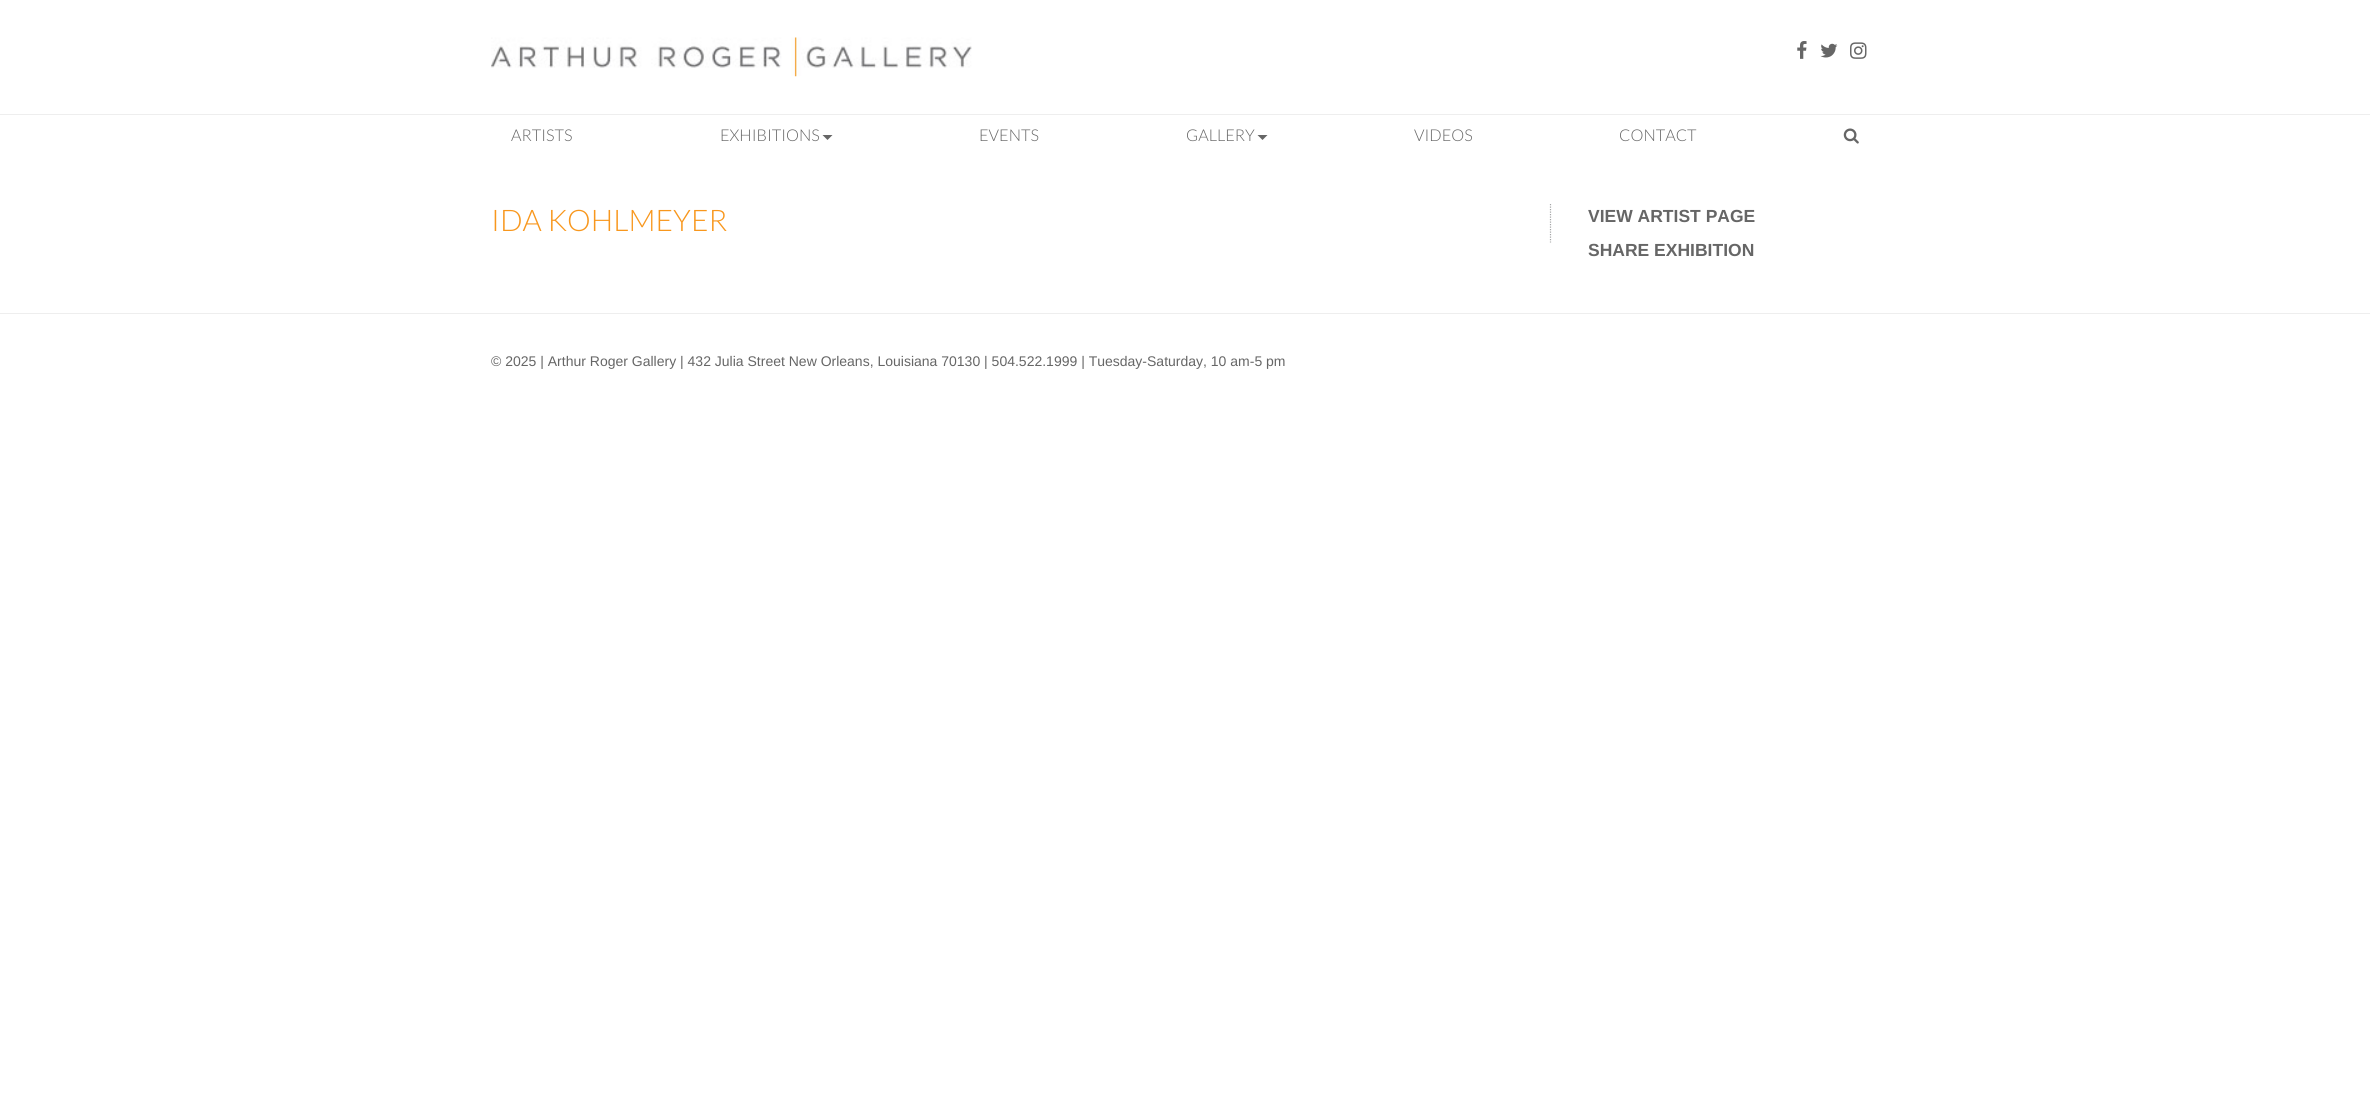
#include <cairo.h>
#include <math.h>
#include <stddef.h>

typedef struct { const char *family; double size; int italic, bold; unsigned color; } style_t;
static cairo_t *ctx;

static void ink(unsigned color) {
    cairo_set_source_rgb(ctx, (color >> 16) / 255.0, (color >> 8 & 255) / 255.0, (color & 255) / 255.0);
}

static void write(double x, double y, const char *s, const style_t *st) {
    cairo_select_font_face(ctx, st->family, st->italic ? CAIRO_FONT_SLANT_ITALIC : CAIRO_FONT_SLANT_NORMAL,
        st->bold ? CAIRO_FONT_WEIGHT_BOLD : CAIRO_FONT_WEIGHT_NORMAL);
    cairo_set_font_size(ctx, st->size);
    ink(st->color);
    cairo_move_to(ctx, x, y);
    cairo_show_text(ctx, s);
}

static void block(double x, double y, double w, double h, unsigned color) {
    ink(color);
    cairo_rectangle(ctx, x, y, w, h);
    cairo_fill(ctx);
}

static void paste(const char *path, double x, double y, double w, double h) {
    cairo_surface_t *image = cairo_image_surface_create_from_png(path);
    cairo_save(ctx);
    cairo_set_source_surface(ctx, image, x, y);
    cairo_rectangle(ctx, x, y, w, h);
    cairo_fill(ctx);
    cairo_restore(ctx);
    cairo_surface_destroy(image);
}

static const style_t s1 = {"Lato Light", 16.25, 0, 0, 0x666666};
static const style_t s2 = {"Lato Light", 29.75, 0, 0, 0xf8971d};
static const style_t s3 = {"Liberation Sans", 17.5, 0, 1, 0x666666};
static const style_t s4 = {"Liberation Sans", 14, 0, 0, 0x666666};

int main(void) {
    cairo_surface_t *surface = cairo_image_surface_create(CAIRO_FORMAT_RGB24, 2370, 1116);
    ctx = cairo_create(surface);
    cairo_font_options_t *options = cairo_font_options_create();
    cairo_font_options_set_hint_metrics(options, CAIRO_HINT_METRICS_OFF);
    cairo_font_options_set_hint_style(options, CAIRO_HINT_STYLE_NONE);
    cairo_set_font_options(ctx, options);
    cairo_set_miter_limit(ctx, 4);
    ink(0xffffff);
    cairo_paint(ctx);
    block(0, 114, 2370, 1, 0xeeeeee);
    paste("pic1.png", 491, 37, 481, 40);
    paste("pic2.png", 1797, 41, 10, 18);
    paste("pic3.png", 1820, 43, 18, 15);
    paste("pic4.png", 1850, 42, 17, 17);
    write(511, 141, "ARTISTS", &s1);
    write(720, 141, "EXHIBITIONS", &s1);
    cairo_new_path(ctx);
    cairo_move_to(ctx, 822.5, 135);
    cairo_line_to(ctx, 832.5, 135);
    cairo_line_to(ctx, 827.5, 140);
    cairo_close_path(ctx);
    cairo_fill(ctx);
    write(979, 141, "EVENTS", &s1);
    write(1186, 141, "GALLERY", &s1);
    cairo_new_path(ctx);
    cairo_move_to(ctx, 1257.5, 135);
    cairo_line_to(ctx, 1267.5, 135);
    cairo_line_to(ctx, 1262.5, 140);
    cairo_close_path(ctx);
    cairo_fill(ctx);
    write(1414, 141, "VIDEOS", &s1);
    write(1619, 141, "CONTACT", &s1);
    paste("pic5.png", 1843, 128, 16, 16);
    cairo_new_path(ctx);
    cairo_move_to(ctx, 1550.5, 204);
    cairo_line_to(ctx, 1550.5, 242.5);
    ink(0xa4a5a6);
    cairo_set_line_width(ctx, 1.2);
    cairo_set_dash(ctx, (double[]){1.25, 1.25}, 2, 0);
    cairo_stroke(ctx);
    write(491, 231, "IDA KOHLMEYER", &s2);
    write(1588, 222, "VIEW ARTIST PAGE", &s3);
    write(1588, 256, "SHARE EXHIBITION", &s3);
    block(0, 313, 2370, 1, 0xeeeeee);
    write(491, 366, "© 2025 | Arthur Roger Gallery | 432 Julia Street New Orleans, Louisiana 70130 | 504.522.1999 | Tuesday-Saturday, 10 am-5 pm", &s4);
    cairo_surface_write_to_png(surface, "screenshot.png");
    cairo_font_options_destroy(options);
    cairo_destroy(ctx);
    cairo_surface_destroy(surface);
    return 0;
}
